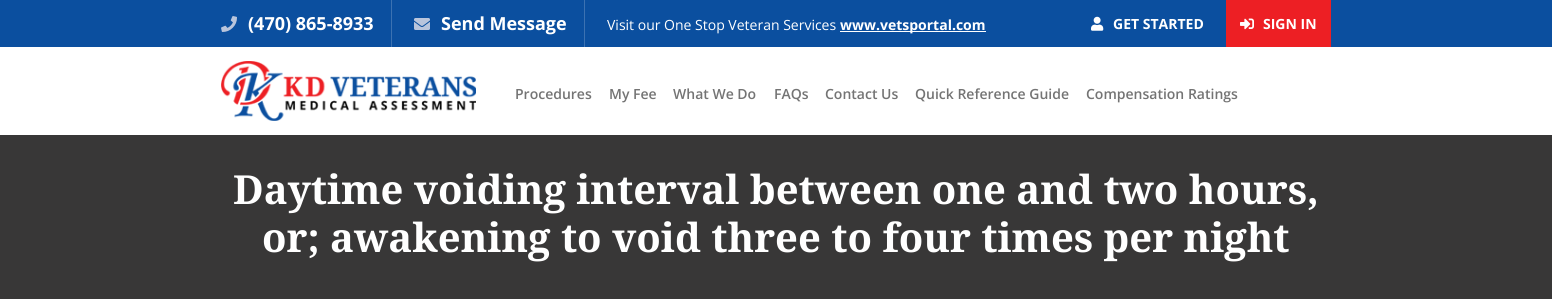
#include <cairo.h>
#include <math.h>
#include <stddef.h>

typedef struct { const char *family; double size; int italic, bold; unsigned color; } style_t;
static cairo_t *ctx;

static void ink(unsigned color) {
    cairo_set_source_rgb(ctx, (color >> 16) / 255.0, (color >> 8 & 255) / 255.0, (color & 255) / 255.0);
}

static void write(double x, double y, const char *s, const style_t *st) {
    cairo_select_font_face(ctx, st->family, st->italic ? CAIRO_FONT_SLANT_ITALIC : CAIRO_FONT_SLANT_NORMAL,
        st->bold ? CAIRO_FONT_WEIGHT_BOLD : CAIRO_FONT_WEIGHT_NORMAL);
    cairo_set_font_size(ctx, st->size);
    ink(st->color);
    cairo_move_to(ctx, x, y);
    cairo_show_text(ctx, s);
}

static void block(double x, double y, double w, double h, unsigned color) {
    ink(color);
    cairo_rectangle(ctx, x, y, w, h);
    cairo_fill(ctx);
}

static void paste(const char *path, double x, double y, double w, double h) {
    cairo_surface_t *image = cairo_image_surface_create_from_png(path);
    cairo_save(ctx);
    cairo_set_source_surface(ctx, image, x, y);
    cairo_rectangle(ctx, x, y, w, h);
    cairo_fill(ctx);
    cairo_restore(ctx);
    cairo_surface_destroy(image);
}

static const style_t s1 = {"Open Sans", 18, 0, 1, 0xffffff};
static const style_t s2 = {"Open Sans", 14, 0, 0, 0xffffff};
static const style_t s3 = {"Open Sans", 14, 0, 1, 0xffffff};
static const style_t s4 = {"Open Sans SemiBold", 14, 0, 0, 0x747474};
static const style_t s5 = {"Noto Serif", 40, 0, 1, 0xffffff};

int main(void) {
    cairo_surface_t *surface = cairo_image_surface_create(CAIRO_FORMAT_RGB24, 1552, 304);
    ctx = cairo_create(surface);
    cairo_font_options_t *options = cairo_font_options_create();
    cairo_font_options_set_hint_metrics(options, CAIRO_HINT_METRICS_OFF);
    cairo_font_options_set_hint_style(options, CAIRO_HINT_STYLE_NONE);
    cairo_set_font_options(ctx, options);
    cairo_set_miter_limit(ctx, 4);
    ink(0xffffff);
    cairo_paint(ctx);
    block(0, 0, 1552, 47, 0x0b4f9f);
    block(391, 0, 1, 47, 0x3c72b2);
    paste("pic1.png", 221, 16, 16, 16);
    write(248, 30, "(470) 865-8933", &s1);
    block(584, 0, 1, 47, 0x3c72b2);
    paste("pic2.png", 414, 18, 16, 12);
    write(441, 30, "Send Message", &s1);
    write(607, 30, "Visit our One Stop Veteran Services", &s2);
    block(840, 31, 146, 1, 0xffffff);
    write(840, 30, "www.vetsportal.com", &s3);
    paste("pic3.png", 1091, 16, 13, 15);
    write(1113, 29, "GET STARTED", &s3);
    block(1226, 0, 105, 47, 0xed1f24);
    paste("pic4.png", 1240, 18, 14, 12);
    write(1263, 29, "SIGN IN", &s3);
    paste("pic5.png", 221, 61, 255, 60);
    write(515, 99, "Procedures", &s4);
    write(609, 99, "My Fee", &s4);
    write(673, 99, "What We Do", &s4);
    write(774, 99, "FAQs", &s4);
    write(825, 99, "Contact Us", &s4);
    write(915, 99, "Quick Reference Guide", &s4);
    write(1086, 99, "Compensation Ratings", &s4);
    block(0, 135, 1552, 164, 0x383737);
    write(233, 204, "Daytime voiding interval between one and two hours,", &s5);
    write(262, 252, "or; awakening to void three to four times per night", &s5);
    cairo_surface_write_to_png(surface, "screenshot.png");
    cairo_font_options_destroy(options);
    cairo_destroy(ctx);
    cairo_surface_destroy(surface);
    return 0;
}
